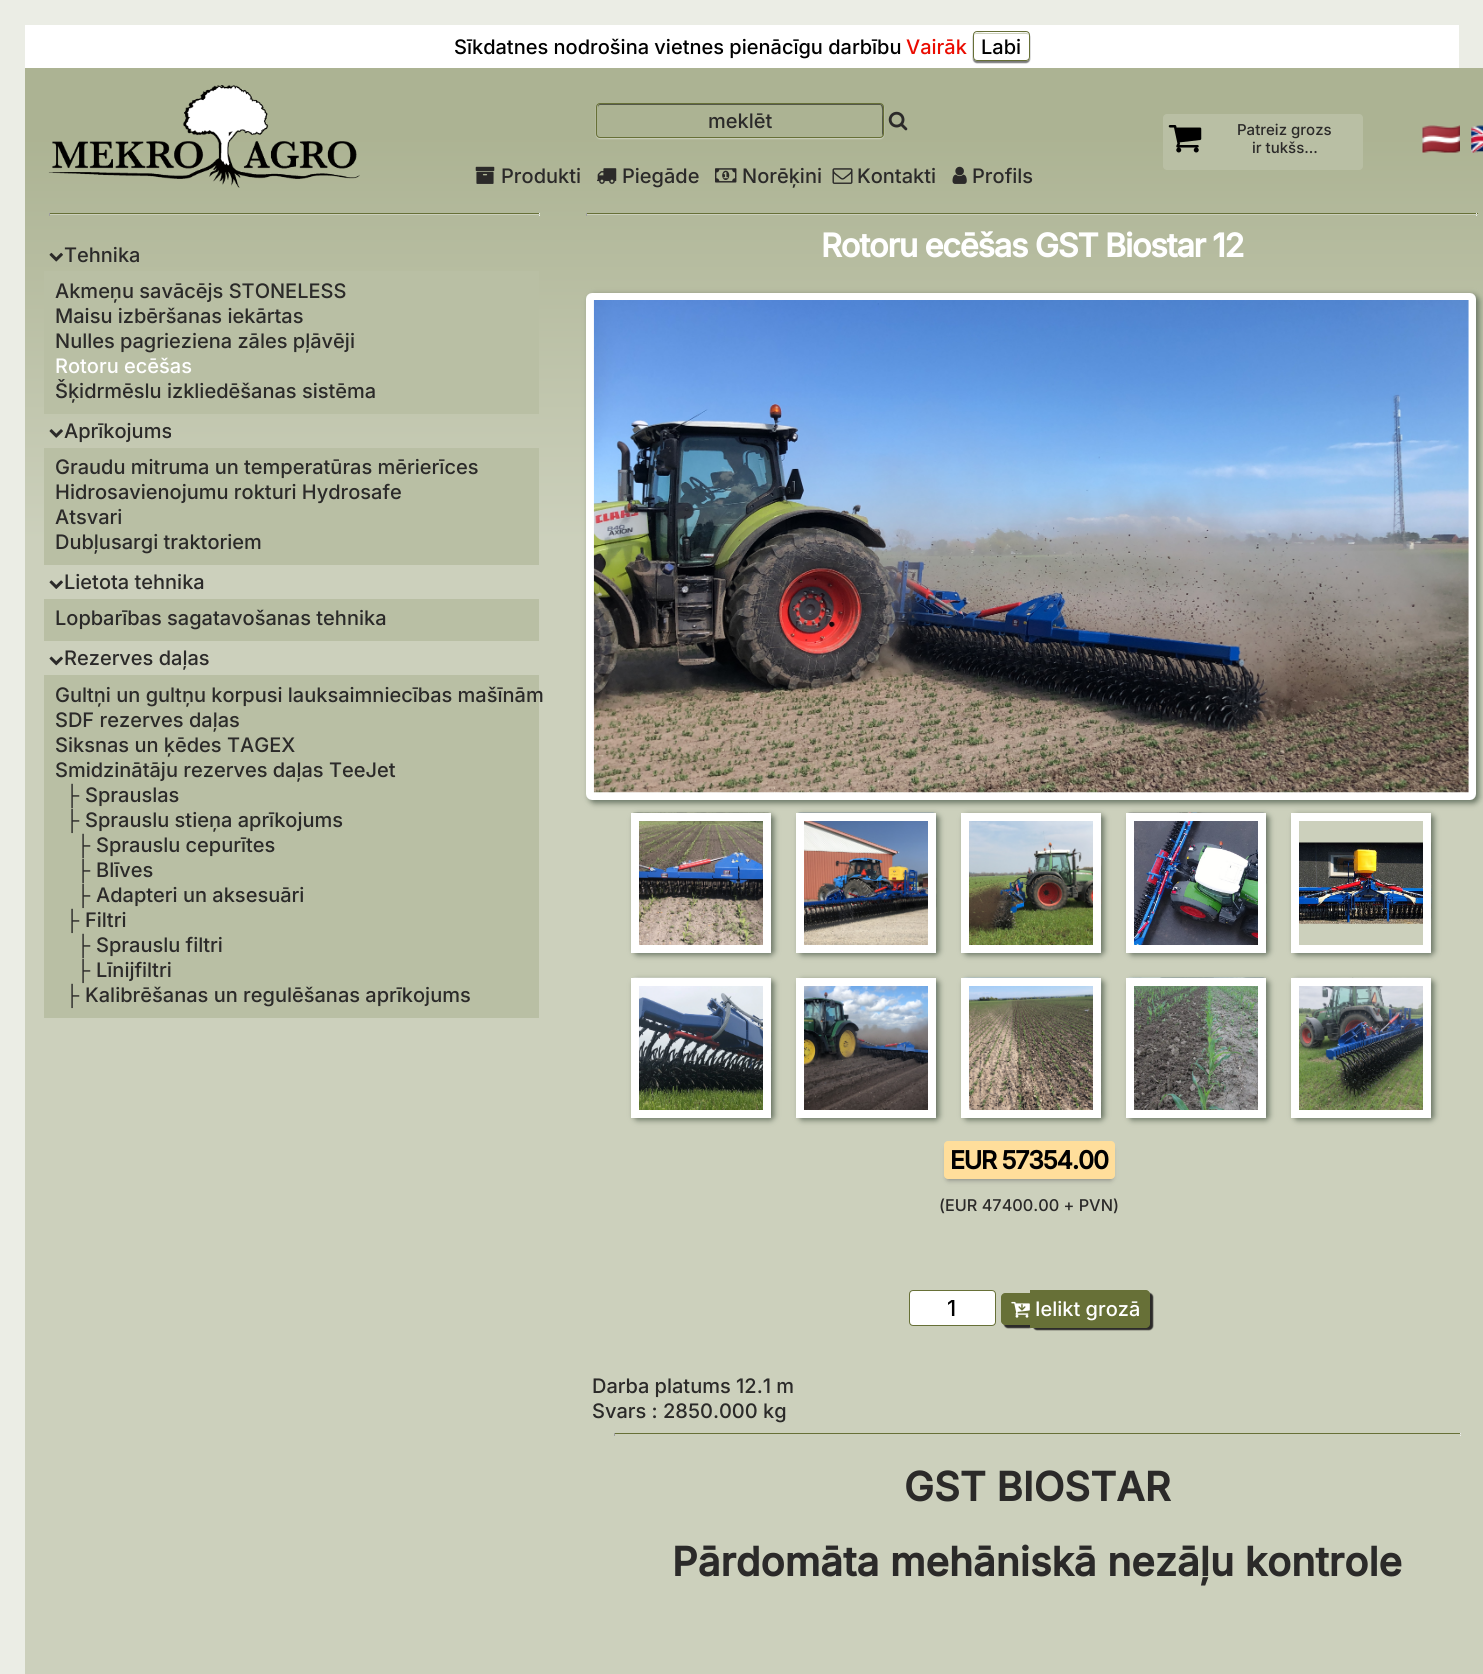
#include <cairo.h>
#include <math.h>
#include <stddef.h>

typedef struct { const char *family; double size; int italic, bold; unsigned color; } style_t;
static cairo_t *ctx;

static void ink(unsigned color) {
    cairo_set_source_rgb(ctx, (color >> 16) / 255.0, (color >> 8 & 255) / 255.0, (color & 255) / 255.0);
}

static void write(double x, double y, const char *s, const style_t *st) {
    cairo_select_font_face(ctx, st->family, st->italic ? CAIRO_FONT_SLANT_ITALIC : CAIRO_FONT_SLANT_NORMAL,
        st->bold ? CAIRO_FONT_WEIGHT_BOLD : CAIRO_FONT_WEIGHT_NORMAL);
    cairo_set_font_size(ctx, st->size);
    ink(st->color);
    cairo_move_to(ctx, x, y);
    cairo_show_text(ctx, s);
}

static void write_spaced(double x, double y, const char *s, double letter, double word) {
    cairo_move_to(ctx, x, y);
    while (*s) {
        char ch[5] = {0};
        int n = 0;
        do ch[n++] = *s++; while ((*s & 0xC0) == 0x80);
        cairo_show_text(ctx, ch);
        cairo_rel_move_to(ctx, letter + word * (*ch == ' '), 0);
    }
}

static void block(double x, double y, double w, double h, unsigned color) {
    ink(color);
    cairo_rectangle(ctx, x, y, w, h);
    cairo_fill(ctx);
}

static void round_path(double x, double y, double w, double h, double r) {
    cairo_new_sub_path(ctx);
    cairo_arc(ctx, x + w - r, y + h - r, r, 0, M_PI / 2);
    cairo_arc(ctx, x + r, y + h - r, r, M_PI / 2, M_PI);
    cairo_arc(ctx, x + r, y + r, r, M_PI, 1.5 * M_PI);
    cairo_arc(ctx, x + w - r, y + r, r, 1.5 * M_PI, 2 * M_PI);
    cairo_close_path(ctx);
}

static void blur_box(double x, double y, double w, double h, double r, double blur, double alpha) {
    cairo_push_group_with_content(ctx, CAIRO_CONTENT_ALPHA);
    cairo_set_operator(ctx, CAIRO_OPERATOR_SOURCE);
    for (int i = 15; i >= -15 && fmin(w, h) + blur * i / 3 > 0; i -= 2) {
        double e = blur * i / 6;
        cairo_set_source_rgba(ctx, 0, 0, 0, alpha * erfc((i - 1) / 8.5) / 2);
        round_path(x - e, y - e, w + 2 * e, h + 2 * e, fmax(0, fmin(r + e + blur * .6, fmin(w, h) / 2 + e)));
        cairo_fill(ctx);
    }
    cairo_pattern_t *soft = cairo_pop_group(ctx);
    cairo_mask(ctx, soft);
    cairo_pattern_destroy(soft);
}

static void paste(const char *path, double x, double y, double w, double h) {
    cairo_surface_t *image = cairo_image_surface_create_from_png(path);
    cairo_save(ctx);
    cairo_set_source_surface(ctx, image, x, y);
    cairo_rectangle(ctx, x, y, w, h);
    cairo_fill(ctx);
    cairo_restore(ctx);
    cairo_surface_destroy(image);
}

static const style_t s1 = {"Inter Medium", 20, 0, 0, 0x000000};
static const style_t s2 = {"Inter Medium", 20, 0, 0, 0xea0b00};
static const style_t s3 = {"Inter Medium", 20, 0, 0, 0x2b2a29};
static const style_t s4 = {"Inter Medium", 15, 0, 0, 0x2b2a29};
static const style_t s5 = {"Inter Medium", 20, 0, 0, 0xffffff};
static const style_t s6 = {"Liberation Sans", 20, 0, 0, 0x2b2a29};
static const style_t s7 = {"Inter Medium", 16.25, 0, 0, 0x2b2a29};
static const style_t s8 = {"Inter Medium", 22, 0, 0, 0x000000};
static const style_t s9 = {"Inter", 40, 0, 1, 0x2b2a29};

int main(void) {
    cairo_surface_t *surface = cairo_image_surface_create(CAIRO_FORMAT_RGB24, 1483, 1674);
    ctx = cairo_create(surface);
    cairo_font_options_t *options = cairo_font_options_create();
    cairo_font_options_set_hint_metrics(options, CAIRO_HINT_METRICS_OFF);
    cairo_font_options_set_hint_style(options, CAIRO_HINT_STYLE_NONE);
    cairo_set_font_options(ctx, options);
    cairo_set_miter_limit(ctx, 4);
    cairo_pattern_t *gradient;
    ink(0xebede5);
    cairo_paint(ctx);
    block(25, 25, 1434, 43, 0xffffff);
    write(454, 54, "Sīkdatnes nodrošina vietnes pienācīgu darbību", &s1);
    write(906, 54, "Vairāk", &s2);
    ink(0x0c0d0e);
    blur_box(973, 33, 57, 30, 4, 0.5, 0.55);
    ink(0xffffff);
    round_path(973, 31, 57, 30, 4);
    cairo_fill(ctx);
    ink(0xccd0bc);
    cairo_new_path(ctx);
    cairo_move_to(ctx, 976, 34);
    cairo_line_to(ctx, 1026, 34);
    cairo_curve_to(ctx, 1028, 34, 1029, 35, 1029, 36);
    cairo_curve_to(ctx, 1029, 31, 1021, 33, 1018, 33);
    cairo_line_to(ctx, 985, 33);
    cairo_curve_to(ctx, 982, 33, 974, 31, 974, 36);
    cairo_curve_to(ctx, 974, 35, 975, 34, 976, 34);
    cairo_close_path(ctx);
    cairo_fill(ctx);
    round_path(973.5, 31.5, 56, 29, 3.5);
    ink(0x677037);
    cairo_set_line_width(ctx, 1);
    cairo_stroke(ctx);
    write(981, 54, "Labi", &s1);
    gradient = cairo_pattern_create_linear(775, 68, 775, 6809);
    cairo_pattern_add_color_stop_rgba(gradient, 0.01, 0.675, 0.702, 0.576, 1);
    cairo_pattern_add_color_stop_rgba(gradient, 0.07, 0.8, 0.816, 0.737, 1);
    cairo_set_source(ctx, gradient);
    cairo_pattern_destroy(gradient);
    cairo_rectangle(ctx, 25, 68, 1458, 1606);
    cairo_fill(ctx);
    paste("pic1.png", 48, 85, 312, 103);
    ink(0xccd0bc);
    blur_box(596, 104, 288, 35, 4, 0.5, 1);
    ink(0xacb393);
    round_path(596, 103, 288, 35, 4);
    cairo_fill(ctx);
    ink(0x54584a);
    cairo_new_path(ctx);
    cairo_move_to(ctx, 600, 105);
    cairo_line_to(ctx, 880, 105);
    cairo_curve_to(ctx, 883, 105, 882, 116, 882, 117);
    cairo_line_to(ctx, 882, 136);
    cairo_curve_to(ctx, 884, 134, 883, 123, 883, 120);
    cairo_line_to(ctx, 883, 111);
    cairo_curve_to(ctx, 883, 109, 884, 104, 880, 104);
    cairo_line_to(ctx, 600, 104);
    cairo_curve_to(ctx, 598, 104, 598, 106, 598, 108);
    cairo_curve_to(ctx, 598, 106, 599, 105, 600, 105);
    cairo_close_path(ctx);
    cairo_fill(ctx);
    round_path(596.5, 103.5, 287, 34, 3.5);
    ink(0x677037);
    cairo_stroke(ctx);
    write(708, 128, "meklēt", &s3);
    paste("pic2.png", 888, 111, 20, 20);
    paste("pic3.png", 475, 166, 20, 18);
    write(501, 183, "Produkti", &s3);
    paste("pic4.png", 597, 168, 20, 16);
    write(622, 183, "Piegāde", &s3);
    paste("pic5.png", 715, 168, 22, 15);
    write(742, 183, "Norēķini", &s3);
    paste("pic6.png", 832, 168, 21, 16);
    write(857, 183, "Kontakti", &s3);
    paste("pic7.png", 952, 166, 15, 18);
    write(972, 183, "Profils", &s3);
    ink(0xb9bfa4);
    round_path(1163, 114, 200, 56, 4);
    cairo_fill(ctx);
    paste("pic8.png", 1168, 125, 34, 28);
    write(1237, 135, "Patreiz grozs", &s4);
    write(1252, 153, "ir tukšs...", &s4);
    paste("pic9.png", 1422, 125, 38, 28);
    paste("pic10.png", 1471, 125, 12, 28);
    block(49, 213, 491, 1, 0x677037);
    block(539, 213, 1, 3, 0xeeeeee);
    block(49, 214, 491, 1, 0xccd0bc);
    block(49, 213, 1, 3, 0x9f9f9f);
    paste("pic11.png", 49, 252, 14, 10);
    write(64, 262, "Tehnika", &s3);
    block(44, 271, 495, 143, 0xb9bfa4);
    write(55, 298, "Akmeņu savācējs STONELESS", &s3);
    write(55, 323, "Maisu izbēršanas iekārtas", &s3);
    write(55, 348, "Nulles pagrieziena zāles pļāvēji", &s3);
    write(55, 373, "Rotoru ecēšas", &s5);
    write(55, 398, "Šķidrmēslu izkliedēšanas sistēma", &s3);
    paste("pic12.png", 49, 429, 14, 9);
    write(64, 438, "Aprīkojums", &s3);
    block(44, 448, 495, 117, 0xb9bfa4);
    write(55, 474, "Graudu mitruma un temperatūras mērierīces", &s3);
    write(55, 499, "Hidrosavienojumu rokturi Hydrosafe", &s3);
    write(55, 524, "Atsvari", &s3);
    write(55, 549, "Dubļusargi traktoriem", &s3);
    paste("pic13.png", 49, 580, 14, 9);
    write(64, 589, "Lietota tehnika", &s3);
    block(44, 599, 495, 42, 0xb9bfa4);
    write(55, 625, "Lopbarības sagatavošanas tehnika", &s3);
    paste("pic14.png", 49, 656, 14, 10);
    write(64, 665, "Rezerves daļas", &s3);
    block(44, 675, 495, 343, 0xb9bfa4);
    write(55, 702, "Gultņi un gultņu korpusi lauksaimniecības mašīnām", &s3);
    write(55, 727, "SDF rezerves daļas", &s3);
    write(55, 752, "Siksnas un ķēdes TAGEX", &s3);
    write(55, 777, "Smidzinātāju rezerves daļas TeeJet", &s3);
    write(65, 802, "├", &s6);
    write(85, 802, "Sprauslas", &s3);
    write(65, 827, "├", &s6);
    write(85, 827, "Sprauslu stieņa aprīkojums", &s3);
    write(76, 852, "├", &s6);
    write(96, 852, "Sprauslu cepurītes", &s3);
    write(76, 877, "├", &s6);
    write(96, 877, "Blīves", &s3);
    write(76, 902, "├", &s6);
    write(96, 902, "Adapteri un aksesuāri", &s3);
    write(65, 927, "├", &s6);
    write(85, 927, "Filtri", &s3);
    write(76, 952, "├", &s6);
    write(96, 952, "Sprauslu filtri", &s3);
    write(76, 977, "├", &s6);
    write(96, 977, "Līnijfiltri", &s3);
    write(65, 1002, "├", &s6);
    write(85, 1002, "Kalibrēšanas un regulēšanas aprīkojums", &s3);
    block(586, 213, 892, 1, 0x677037);
    block(1476, 213, 1, 3, 0xeeeeee);
    block(586, 214, 892, 1, 0xccd0bc);
    block(586, 213, 1, 3, 0x9f9f9f);
    cairo_select_font_face(ctx, "Inter", CAIRO_FONT_SLANT_NORMAL, CAIRO_FONT_WEIGHT_BOLD);
    cairo_set_font_size(ctx, 32.5);
    ink(0xffffff);
    write_spaced(821, 257, "Rotoru ecēšas GST Biostar 12", -1.25, 0);
    ink(0x687463);
    blur_box(589, 295, 890, 508, 6, 3, 1);
    round_path(590, 297, 882, 499, 2);
    ink(0xffffff);
    cairo_set_line_width(ctx, 8);
    cairo_stroke(ctx);
    paste("pic15.png", 593, 300, 876, 493);
    ink(0x687463);
    blur_box(634, 815, 140, 140, 4, 3, 1);
    blur_box(799, 815, 140, 140, 4, 3, 1);
    blur_box(964, 815, 140, 140, 4, 3, 1);
    blur_box(1129, 815, 140, 140, 4, 3, 1);
    cairo_save(ctx);
    cairo_set_fill_rule(ctx, CAIRO_FILL_RULE_EVEN_ODD);
    cairo_new_path(ctx);
    cairo_move_to(ctx, 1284, 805);
    cairo_line_to(ctx, 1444, 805);
    cairo_line_to(ctx, 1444, 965);
    cairo_line_to(ctx, 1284, 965);
    cairo_close_path(ctx);
    cairo_move_to(ctx, 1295, 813);
    cairo_line_to(ctx, 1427, 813);
    cairo_curve_to(ctx, 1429, 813, 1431, 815, 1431, 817);
    cairo_line_to(ctx, 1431, 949);
    cairo_curve_to(ctx, 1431, 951, 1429, 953, 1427, 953);
    cairo_line_to(ctx, 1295, 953);
    cairo_curve_to(ctx, 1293, 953, 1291, 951, 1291, 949);
    cairo_line_to(ctx, 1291, 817);
    cairo_curve_to(ctx, 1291, 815, 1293, 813, 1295, 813);
    cairo_close_path(ctx);
    cairo_clip(ctx);
    blur_box(1294, 815, 140, 140, 4, 3, 1);
    cairo_restore(ctx);
    paste("pic16.png", 631, 812, 141, 141);
    paste("pic17.png", 796, 812, 141, 141);
    paste("pic18.png", 1126, 812, 141, 141);
    cairo_rectangle(ctx, 635, 817, 132, 132);
    ink(0xffffff);
    cairo_stroke(ctx);
    cairo_rectangle(ctx, 800, 817, 132, 132);
    cairo_stroke(ctx);
    paste("pic19.png", 969, 819, 133, 126);
    cairo_rectangle(ctx, 965, 817, 132, 132);
    cairo_stroke(ctx);
    cairo_rectangle(ctx, 1130, 817, 132, 132);
    cairo_stroke(ctx);
    paste("pic20.png", 1299, 842, 133, 82);
    cairo_rectangle(ctx, 1295, 817, 132, 132);
    cairo_stroke(ctx);
    ink(0x687463);
    blur_box(634, 980, 140, 140, 4, 3, 1);
    blur_box(799, 980, 140, 140, 4, 3, 1);
    blur_box(964, 980, 140, 140, 4, 3, 1);
    blur_box(1129, 980, 140, 140, 4, 3, 1);
    blur_box(1294, 980, 140, 140, 4, 3, 1);
    paste("pic21.png", 631, 977, 141, 141);
    paste("pic22.png", 961, 977, 141, 141);
    paste("pic23.png", 1126, 977, 141, 141);
    paste("pic24.png", 1291, 977, 141, 141);
    cairo_rectangle(ctx, 635, 982, 132, 132);
    ink(0xffffff);
    cairo_stroke(ctx);
    paste("pic25.png", 804, 984, 133, 126);
    cairo_rectangle(ctx, 800, 982, 132, 132);
    cairo_stroke(ctx);
    cairo_rectangle(ctx, 965, 982, 132, 132);
    cairo_stroke(ctx);
    cairo_rectangle(ctx, 1130, 982, 132, 132);
    cairo_stroke(ctx);
    cairo_rectangle(ctx, 1295, 982, 132, 132);
    cairo_stroke(ctx);
    ink(0x646464);
    blur_box(948, 1149, 163, 30, 0, 3, 0.9);
    ink(0xffde9b);
    round_path(944, 1141, 171, 38, 4);
    cairo_fill(ctx);
    cairo_set_font_size(ctx, 25);
    ink(0x000000);
    write_spaced(950, 1169, "EUR 57354.00", -1.25, 0);
    write(939, 1211, "(EUR 47400.00 + PVN)", &s7);
    ink(0xffffff);
    round_path(909.5, 1290.5, 86, 35, 3.5);
    cairo_fill_preserve(ctx);
    ink(0x677037);
    cairo_set_line_width(ctx, 1);
    cairo_stroke(ctx);
    write(947, 1316, "1", &s8);
    ink(0x2b2a29);
    blur_box(1004, 1295, 29, 33, 4, 0.5, 1);
    ink(0x677037);
    cairo_new_path(ctx);
    cairo_move_to(ctx, 1005, 1293);
    cairo_line_to(ctx, 1030, 1293);
    cairo_line_to(ctx, 1030, 1325);
    cairo_line_to(ctx, 1005, 1325);
    cairo_curve_to(ctx, 1003, 1325, 1001, 1323, 1001, 1321);
    cairo_line_to(ctx, 1001, 1297);
    cairo_curve_to(ctx, 1001, 1295, 1003, 1293, 1005, 1293);
    cairo_close_path(ctx);
    cairo_fill(ctx);
    ink(0x2b2a29);
    blur_box(1033, 1293, 120, 37, 4, 0.5, 1);
    ink(0x677037);
    cairo_new_path(ctx);
    cairo_move_to(ctx, 1030, 1290);
    cairo_line_to(ctx, 1146, 1290);
    cairo_curve_to(ctx, 1148, 1290, 1150, 1292, 1150, 1294);
    cairo_line_to(ctx, 1150, 1324);
    cairo_curve_to(ctx, 1150, 1326, 1148, 1328, 1146, 1328);
    cairo_line_to(ctx, 1030, 1328);
    cairo_close_path(ctx);
    cairo_fill(ctx);
    paste("pic26.png", 1011, 1301, 19, 17);
    write(1035, 1316, "Ielikt grozā", &s5);
    write(592, 1393, "Darba platums 12.1 m", &s3);
    write(592, 1418, "Svars : 2850.000 kg", &s3);
    block(614, 1433, 847, 1, 0x677037);
    block(1460, 1433, 1, 3, 0xeeeeee);
    block(1460, 1434, 1, 1, 0xccd0bc);
    block(614, 1433, 1, 3, 0x9f9f9f);
    write(904, 1501, "GST BIOSTAR", &s9);
    write(672, 1576, "Pārdomāta mehāniskā nezāļu kontrole", &s9);
    cairo_surface_write_to_png(surface, "screenshot.png");
    cairo_font_options_destroy(options);
    cairo_destroy(ctx);
    cairo_surface_destroy(surface);
    return 0;
}
